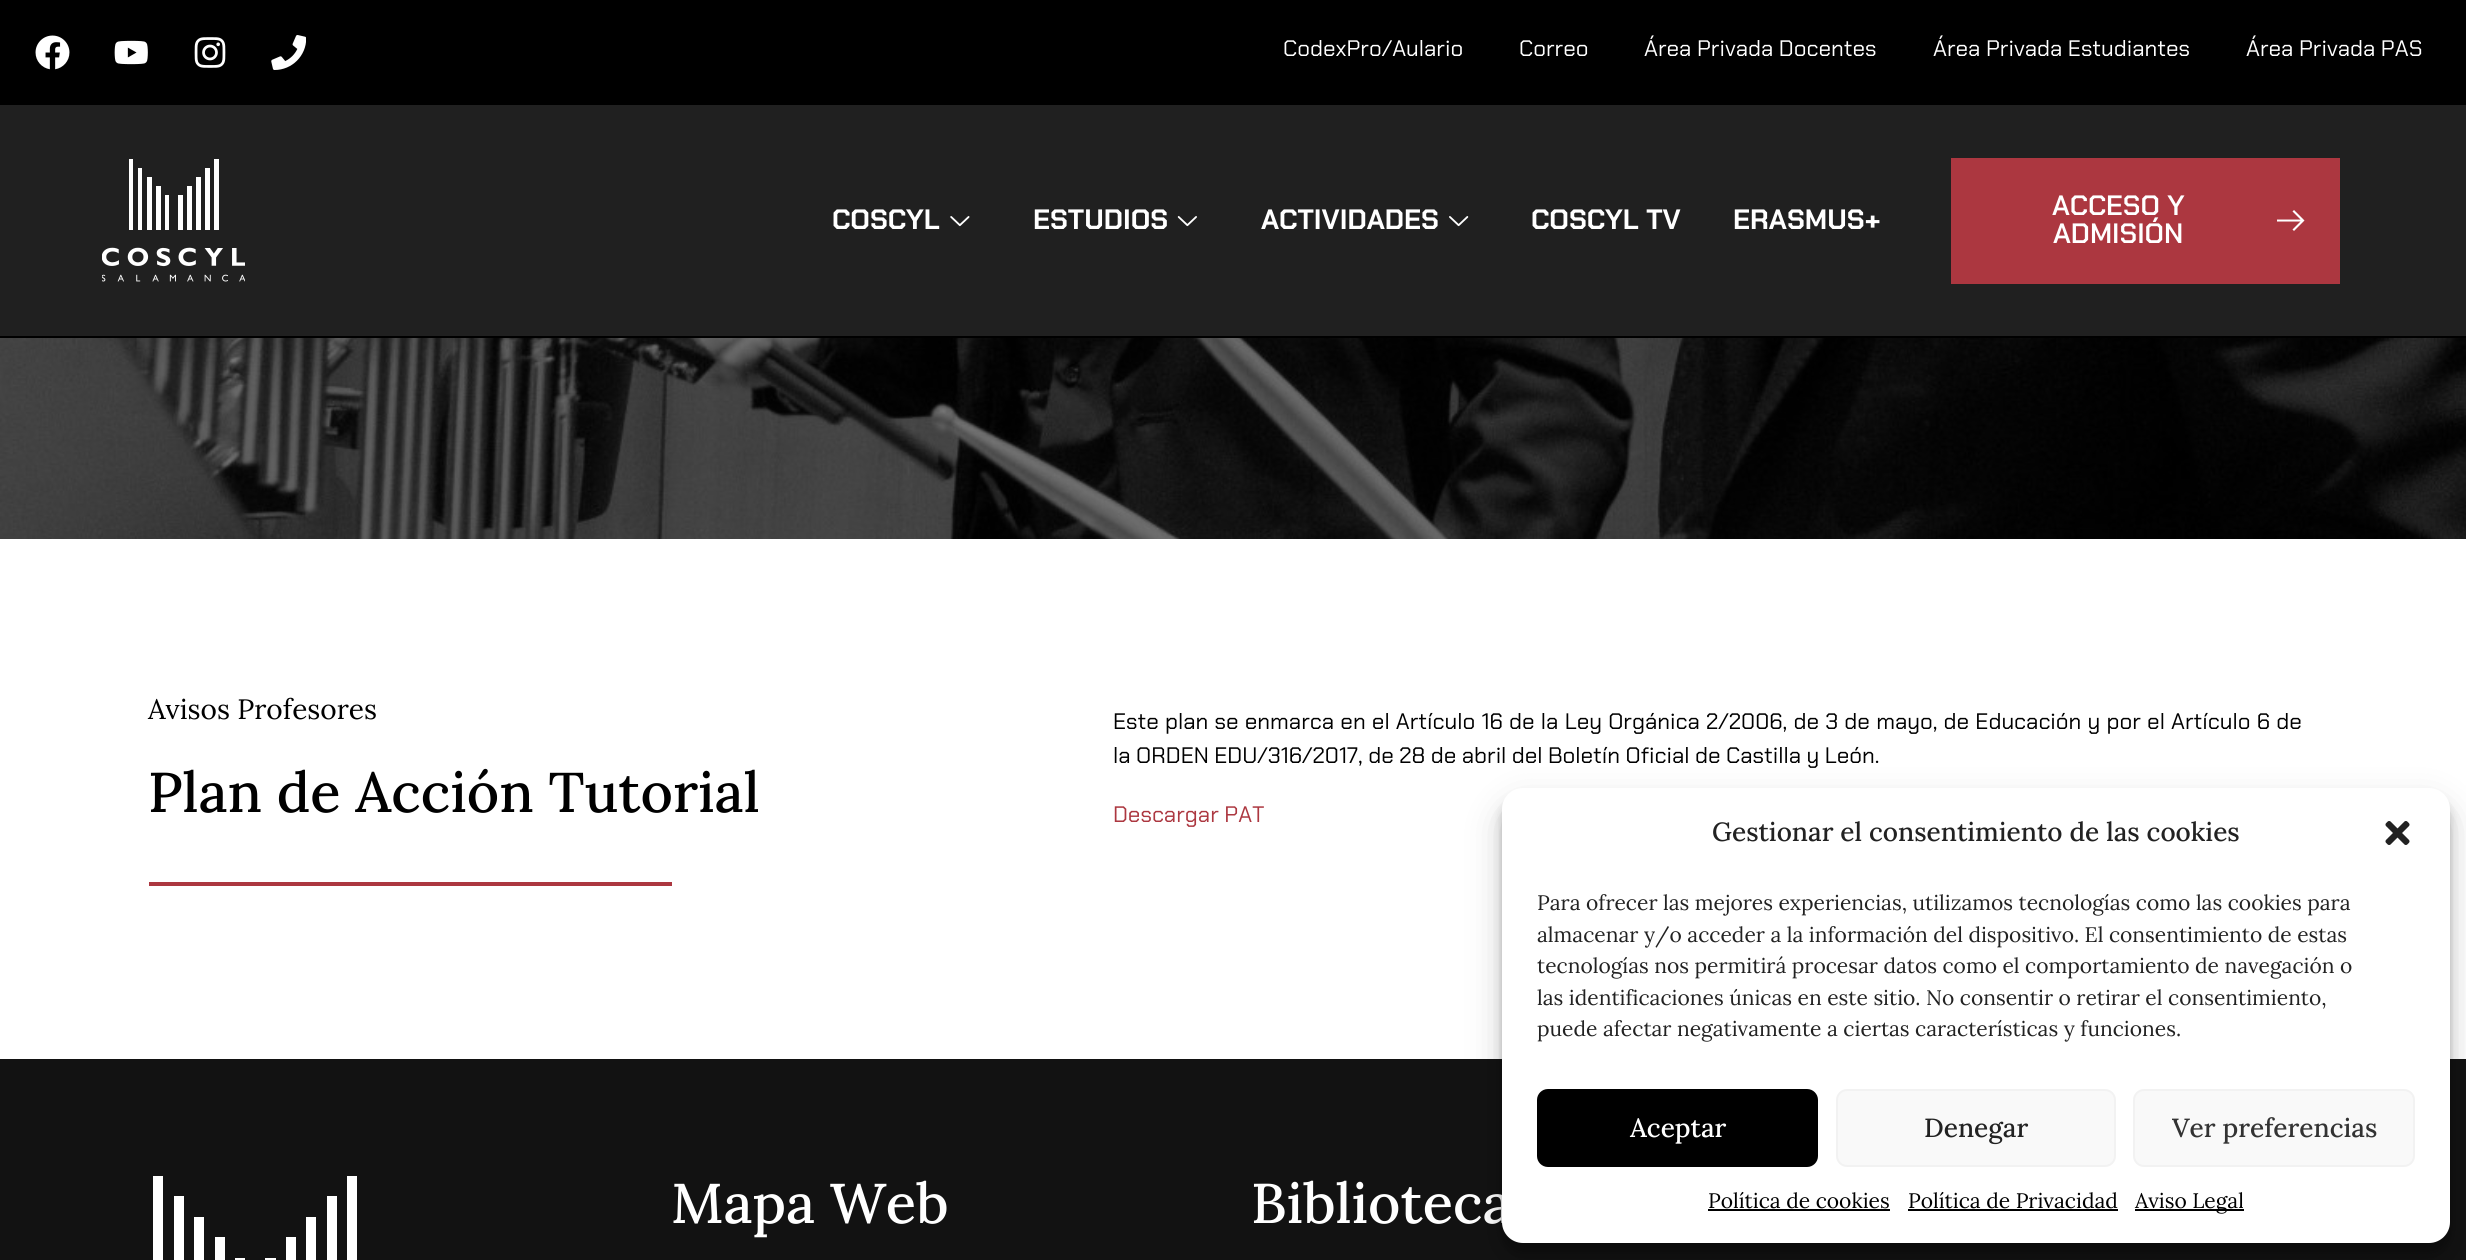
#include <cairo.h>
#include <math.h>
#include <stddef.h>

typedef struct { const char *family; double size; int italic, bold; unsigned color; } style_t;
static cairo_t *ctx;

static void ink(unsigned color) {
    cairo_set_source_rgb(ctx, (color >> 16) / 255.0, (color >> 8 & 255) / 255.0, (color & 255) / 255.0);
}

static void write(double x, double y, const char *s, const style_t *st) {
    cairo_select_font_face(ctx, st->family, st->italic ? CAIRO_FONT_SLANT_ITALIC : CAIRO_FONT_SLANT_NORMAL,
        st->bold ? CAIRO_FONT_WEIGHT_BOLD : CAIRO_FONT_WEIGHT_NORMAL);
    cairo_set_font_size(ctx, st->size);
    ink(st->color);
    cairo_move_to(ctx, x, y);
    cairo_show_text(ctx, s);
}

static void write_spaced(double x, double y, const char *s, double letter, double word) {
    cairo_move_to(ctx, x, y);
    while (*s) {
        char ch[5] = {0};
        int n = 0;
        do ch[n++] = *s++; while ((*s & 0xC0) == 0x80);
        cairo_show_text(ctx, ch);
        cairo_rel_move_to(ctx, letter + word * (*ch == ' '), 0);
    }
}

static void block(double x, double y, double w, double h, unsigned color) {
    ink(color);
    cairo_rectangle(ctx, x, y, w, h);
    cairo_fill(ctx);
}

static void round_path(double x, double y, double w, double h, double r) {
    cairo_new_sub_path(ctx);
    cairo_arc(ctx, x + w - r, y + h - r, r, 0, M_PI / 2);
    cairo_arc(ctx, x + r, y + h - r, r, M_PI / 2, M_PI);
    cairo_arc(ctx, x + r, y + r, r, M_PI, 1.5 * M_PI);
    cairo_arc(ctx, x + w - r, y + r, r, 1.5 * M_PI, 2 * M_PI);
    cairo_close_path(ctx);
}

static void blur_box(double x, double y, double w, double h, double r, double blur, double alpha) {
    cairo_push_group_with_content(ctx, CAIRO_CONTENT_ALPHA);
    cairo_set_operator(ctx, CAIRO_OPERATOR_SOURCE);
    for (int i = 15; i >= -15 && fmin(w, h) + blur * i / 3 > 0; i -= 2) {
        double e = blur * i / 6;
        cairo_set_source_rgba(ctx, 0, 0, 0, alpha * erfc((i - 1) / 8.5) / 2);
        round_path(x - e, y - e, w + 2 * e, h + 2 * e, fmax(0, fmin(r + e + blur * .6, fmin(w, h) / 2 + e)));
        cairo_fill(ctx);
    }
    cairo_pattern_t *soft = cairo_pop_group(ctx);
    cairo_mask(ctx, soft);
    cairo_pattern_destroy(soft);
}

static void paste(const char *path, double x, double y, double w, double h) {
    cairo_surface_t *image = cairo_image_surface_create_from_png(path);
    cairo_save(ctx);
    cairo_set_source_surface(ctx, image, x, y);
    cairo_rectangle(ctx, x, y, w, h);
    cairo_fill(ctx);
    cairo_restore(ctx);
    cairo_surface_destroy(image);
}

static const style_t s1 = {"Chakra Petch", 22.4, 0, 0, 0xffffff};
static const style_t s2 = {"Chakra Petch", 28, 0, 1, 0xffffff};
static const style_t s3 = {"Chakra Petch SemiBold", 28, 0, 0, 0xffffff};
static const style_t s4 = {"Lora", 28, 0, 0, 0x000000};
static const style_t s5 = {"Lora Medium", 56, 0, 0, 0x000000};
static const style_t s6 = {"Chakra Petch", 22.4, 0, 0, 0x000000};
static const style_t s7 = {"Chakra Petch", 22.4, 0, 0, 0xac3740};
static const style_t s8 = {"Lora Medium", 56, 0, 0, 0xffffff};
static const style_t s9 = {"Lora Medium", 26.25, 0, 0, 0x222222};
static const style_t s10 = {"Lora", 21, 0, 0, 0x222222};
static const style_t s11 = {"Lora Medium", 26.25, 0, 0, 0xffffff};
static const style_t s12 = {"Lora Medium", 26.25, 0, 0, 0x333333};
static const style_t s13 = {"Lora", 21, 0, 0, 0x000000};

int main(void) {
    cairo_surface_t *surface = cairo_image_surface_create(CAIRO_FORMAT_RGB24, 2466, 1260);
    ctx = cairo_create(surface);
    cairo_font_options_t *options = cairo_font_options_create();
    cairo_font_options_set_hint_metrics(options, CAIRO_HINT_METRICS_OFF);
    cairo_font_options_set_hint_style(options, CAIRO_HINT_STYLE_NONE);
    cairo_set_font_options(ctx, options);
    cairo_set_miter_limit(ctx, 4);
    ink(0x202020);
    cairo_paint(ctx);
    block(0, 0, 2466, 105, 0x000000);
    paste("pic1.png", 35, 35, 35, 35);
    paste("pic2.png", 114, 40, 34, 25);
    paste("pic3.png", 194, 37, 32, 31);
    paste("pic4.png", 271, 35, 35, 35);
    write(1283, 56, "CodexPro/Aulario", &s1);
    write(1519, 56, "Correo", &s1);
    write(1644, 56, "Área Privada Docentes", &s1);
    write(1933, 56, "Área Privada Estudiantes", &s1);
    write(2246, 56, "Área Privada PAS", &s1);
    block(0, 336, 2466, 2, 0x000000);
    paste("pic5.png", 102, 159, 143, 123);
    write(832, 229, "COSCYL", &s2);
    paste("pic6.png", 950, 216, 20, 11);
    write(1033, 229, "ESTUDIOS", &s2);
    paste("pic7.png", 1177, 216, 20, 11);
    write(1261, 229, "ACTIVIDADES", &s2);
    paste("pic8.png", 1449, 216, 20, 11);
    write(1531, 229, "COSCYL TV", &s2);
    write(1733, 229, "ERASMUS+", &s2);
    block(1951, 158, 389, 126, 0xac3740);
    write(2052, 215, "ACCESO Y", &s3);
    write(2053, 243, "ADMISIÓN", &s3);
    cairo_new_path(ctx);
    cairo_move_to(ctx, 2292.5, 229.5);
    cairo_line_to(ctx, 2294, 231);
    cairo_line_to(ctx, 2304.5, 220.5);
    cairo_line_to(ctx, 2294, 210);
    cairo_line_to(ctx, 2292.5, 211.5);
    cairo_line_to(ctx, 2300.5, 219.5);
    cairo_line_to(ctx, 2277, 219.5);
    cairo_line_to(ctx, 2277, 221.5);
    cairo_line_to(ctx, 2300.5, 221.5);
    cairo_close_path(ctx);
    cairo_fill(ctx);
    paste("pic9.png", 0, 338, 2466, 201);
    block(0, 539, 2466, 520, 0xffffff);
    write(148, 719, "Avisos Profesores", &s4);
    write(148, 812, "Plan de Acción Tutorial", &s5);
    block(149, 882, 523, 4, 0xac3740);
    cairo_select_font_face(ctx, "Chakra Petch", CAIRO_FONT_SLANT_NORMAL, CAIRO_FONT_WEIGHT_NORMAL);
    cairo_set_font_size(ctx, 22.4);
    ink(0x000000);
    write_spaced(1113, 729, "Este plan se enmarca en el Artículo 16 de la Ley Orgánica 2/2006, de 3 de mayo, de Educación y por el Artículo 6 de", 0, 0.75);
    write(1113, 763, "la ORDEN EDU/316/2017, de 28 de abril del Boletín Oficial de Castilla y León.", &s6);
    write(1113, 822, "Descargar PAT", &s7);
    block(0, 1059, 2466, 201, 0x121212);
    paste("pic10.png", 153, 1176, 204, 84);
    write(671, 1223, "Mapa Web", &s8);
    write(1251, 1223, "Biblioteca", &s8);
    ink(0x000000);
    blur_box(1502, 798, 948, 455, 21, 5, 0.23);
    blur_box(1502, 805, 948, 455, 21, 17.5, 0.19);
    ink(0xffffff);
    round_path(1502, 788, 948, 455, 21);
    cairo_fill(ctx);
    write(1712, 841, "Gestionar el consentimiento de las cookies", &s9);
    paste("pic11.png", 2385, 821, 25, 24);
    write(1537, 910, "Para ofrecer las mejores experiencias, utilizamos tecnologías como las cookies para", &s10);
    write(1537, 942, "almacenar y/o acceder a la información del dispositivo. El consentimiento de estas", &s10);
    write(1537, 973, "tecnologías nos permitirá procesar datos como el comportamiento de navegación o", &s10);
    write(1537, 1005, "las identificaciones únicas en este sitio. No consentir o retirar el consentimiento,", &s10);
    write(1537, 1036, "puede afectar negativamente a ciertas características y funciones.", &s10);
    ink(0x000000);
    round_path(1538, 1090, 279, 76, 10);
    cairo_fill_preserve(ctx);
    cairo_stroke(ctx);
    write(1630, 1137, "Aceptar", &s11);
    ink(0xf9f9f9);
    round_path(1837, 1090, 278, 76, 10);
    cairo_fill_preserve(ctx);
    ink(0xf2f2f2);
    cairo_stroke(ctx);
    write(1924, 1137, "Denegar", &s9);
    ink(0xf9f9f9);
    round_path(2134, 1090, 280, 76, 10);
    cairo_fill_preserve(ctx);
    ink(0xf2f2f2);
    cairo_stroke(ctx);
    write(2172, 1137, "Ver preferencias", &s12);
    write(1708, 1208, "Política de cookies", &s13);
    block(1708, 1209, 182, 2, 0x000000);
    write(1908, 1208, "Política de Privacidad", &s13);
    block(1908, 1209, 210, 2, 0x000000);
    block(2135, 1209, 109, 2, 0x000000);
    write(2135, 1208, "Aviso Legal", &s13);
    cairo_surface_write_to_png(surface, "screenshot.png");
    cairo_font_options_destroy(options);
    cairo_destroy(ctx);
    cairo_surface_destroy(surface);
    return 0;
}
